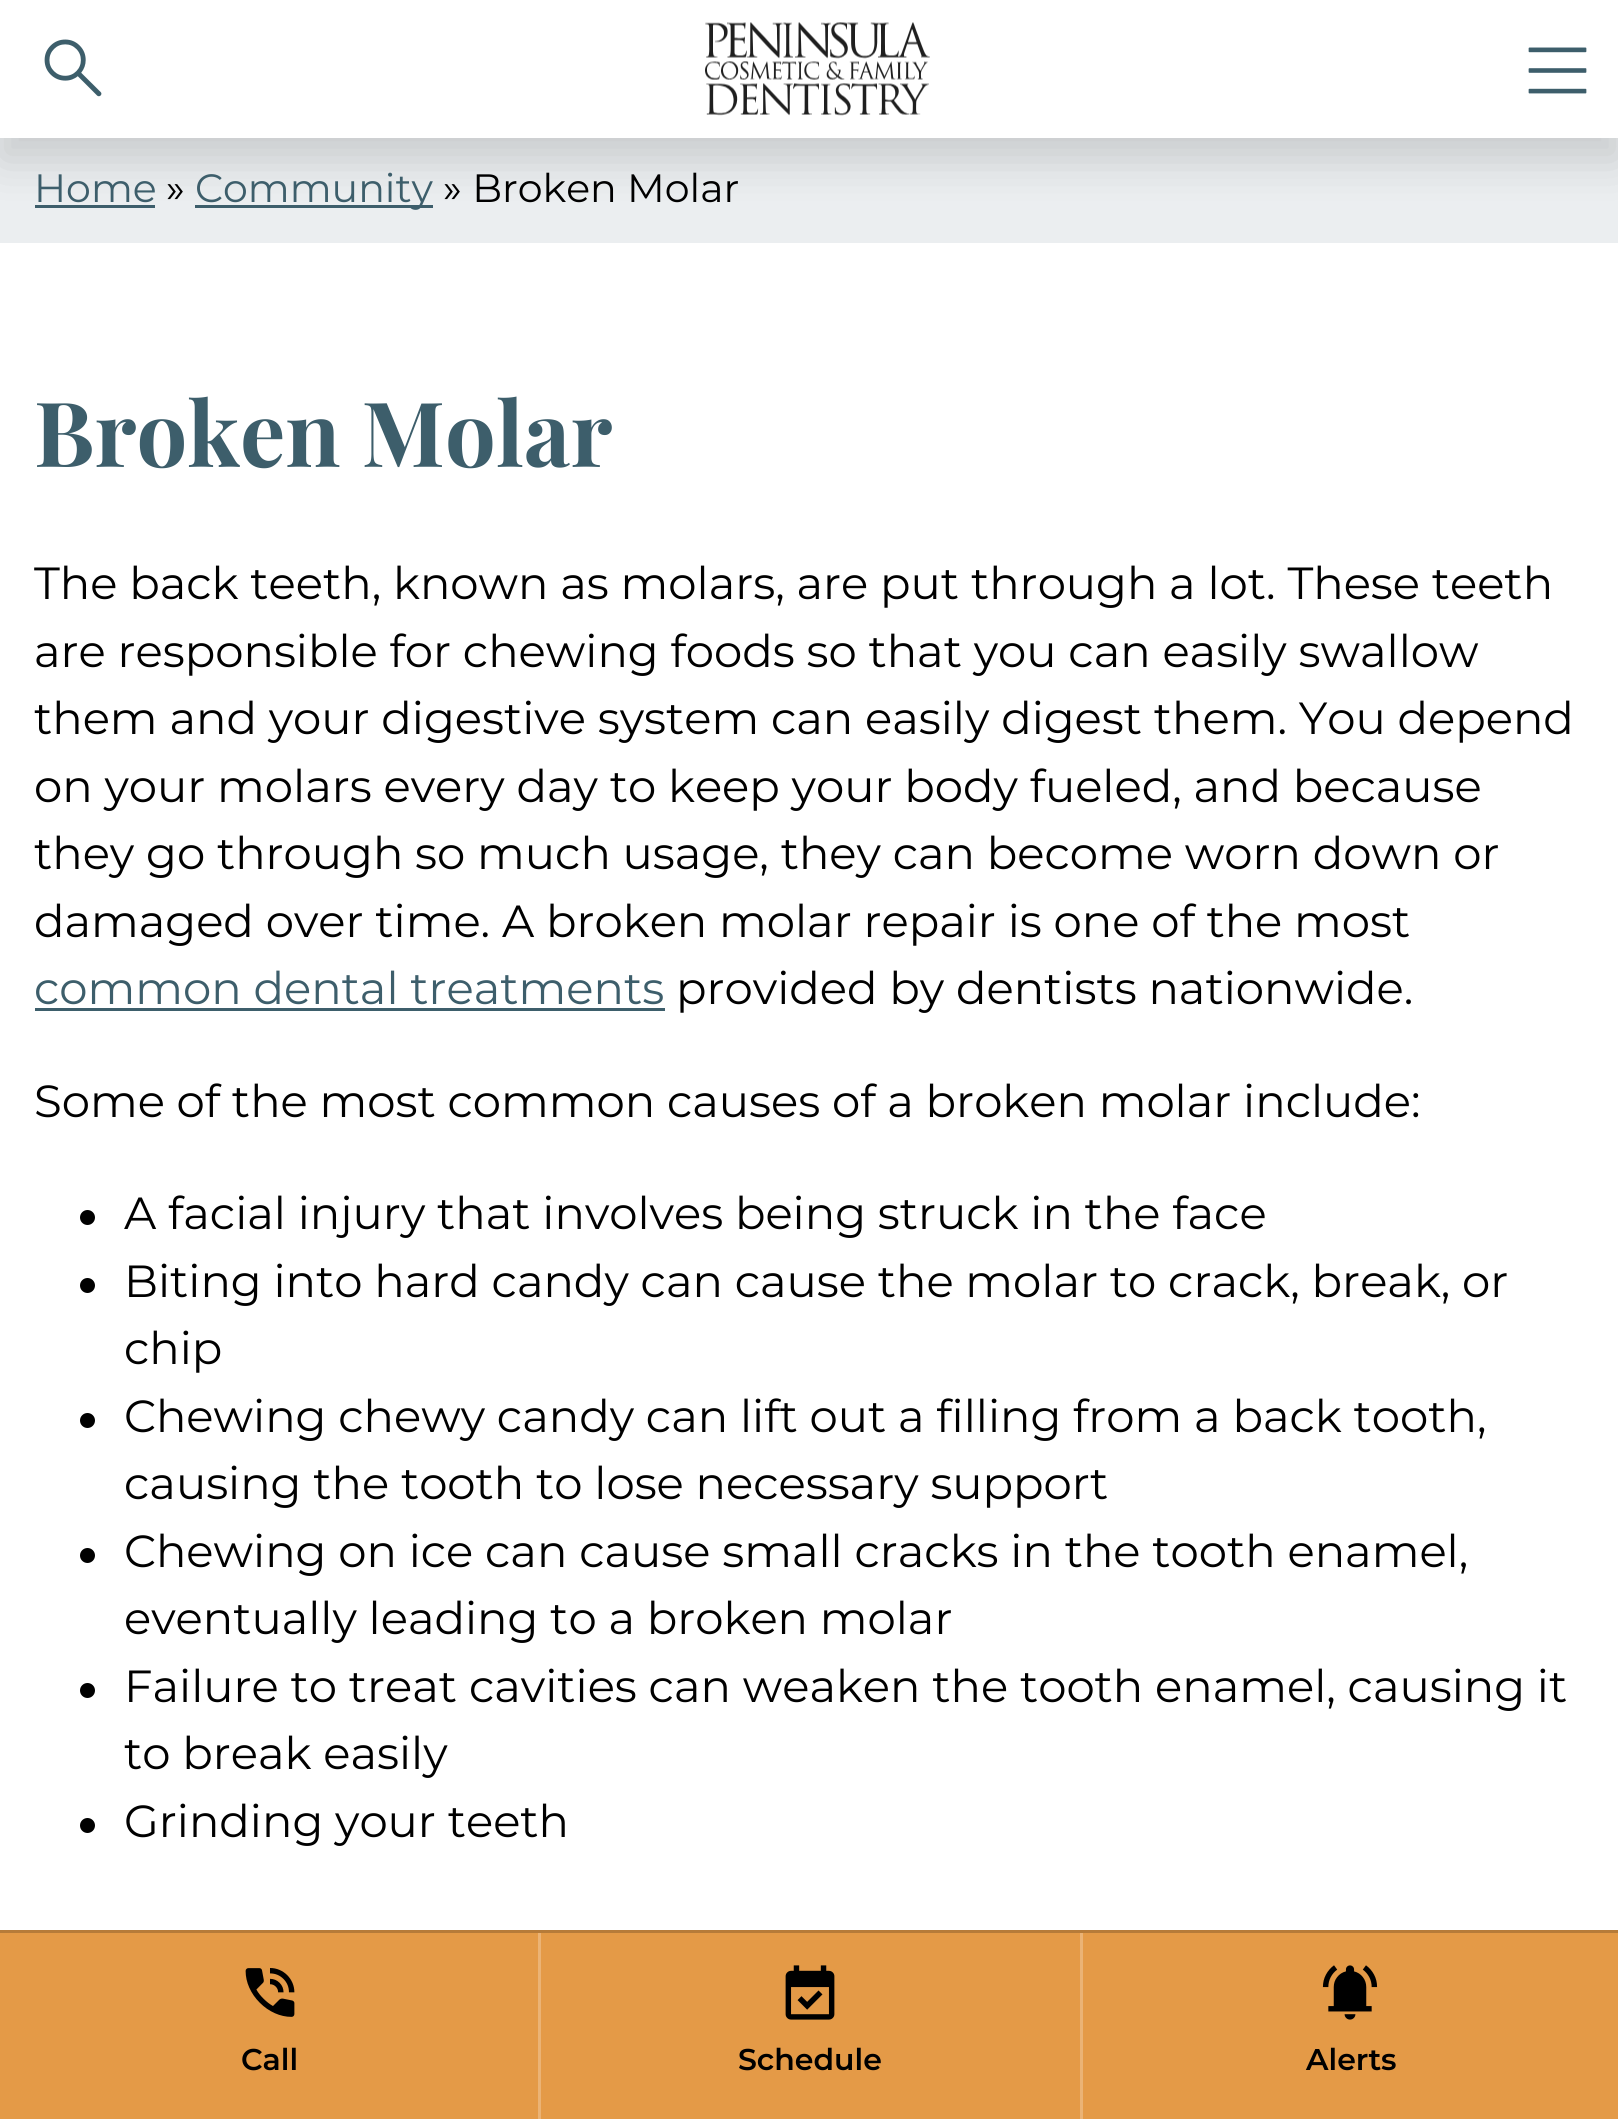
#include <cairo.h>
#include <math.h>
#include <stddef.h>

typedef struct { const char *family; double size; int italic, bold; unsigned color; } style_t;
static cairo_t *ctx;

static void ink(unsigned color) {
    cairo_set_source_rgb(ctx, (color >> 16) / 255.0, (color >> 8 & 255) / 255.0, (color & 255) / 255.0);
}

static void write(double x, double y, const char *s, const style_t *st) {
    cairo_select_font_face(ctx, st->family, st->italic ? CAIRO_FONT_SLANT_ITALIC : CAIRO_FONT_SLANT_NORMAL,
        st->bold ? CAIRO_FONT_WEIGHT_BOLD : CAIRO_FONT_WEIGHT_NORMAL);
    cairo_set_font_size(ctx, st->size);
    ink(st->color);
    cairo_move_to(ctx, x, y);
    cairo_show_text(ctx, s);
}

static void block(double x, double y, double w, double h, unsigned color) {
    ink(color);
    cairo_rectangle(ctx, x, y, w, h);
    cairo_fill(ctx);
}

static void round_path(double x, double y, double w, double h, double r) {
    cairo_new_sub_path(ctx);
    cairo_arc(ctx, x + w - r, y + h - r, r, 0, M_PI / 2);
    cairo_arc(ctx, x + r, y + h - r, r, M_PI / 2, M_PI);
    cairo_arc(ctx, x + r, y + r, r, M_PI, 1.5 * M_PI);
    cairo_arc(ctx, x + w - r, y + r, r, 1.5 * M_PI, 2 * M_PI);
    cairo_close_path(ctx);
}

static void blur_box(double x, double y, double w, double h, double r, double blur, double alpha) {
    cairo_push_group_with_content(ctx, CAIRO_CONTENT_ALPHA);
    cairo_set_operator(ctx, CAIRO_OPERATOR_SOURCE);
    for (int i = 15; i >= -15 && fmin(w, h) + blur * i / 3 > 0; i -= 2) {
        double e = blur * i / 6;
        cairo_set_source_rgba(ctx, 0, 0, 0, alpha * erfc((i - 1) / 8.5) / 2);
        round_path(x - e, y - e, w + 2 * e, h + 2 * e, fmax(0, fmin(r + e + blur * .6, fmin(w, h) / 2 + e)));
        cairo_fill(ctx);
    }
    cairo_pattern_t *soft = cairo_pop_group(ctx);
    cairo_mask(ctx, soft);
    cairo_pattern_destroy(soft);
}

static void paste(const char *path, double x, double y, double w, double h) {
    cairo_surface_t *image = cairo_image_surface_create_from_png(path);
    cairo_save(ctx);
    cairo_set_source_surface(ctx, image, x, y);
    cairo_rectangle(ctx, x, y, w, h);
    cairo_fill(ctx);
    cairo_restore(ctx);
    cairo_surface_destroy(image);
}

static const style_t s1 = {"Montserrat", 39.5, 0, 0, 0x3d5e6b};
static const style_t s2 = {"Montserrat", 39.5, 0, 0, 0x000000};
static const style_t s3 = {"Playfair Display", 90, 0, 1, 0x3d5e6b};
static const style_t s4 = {"Montserrat", 45, 0, 0, 0x000000};
static const style_t s5 = {"Montserrat", 45, 0, 0, 0x3d5e6b};
static const style_t s6 = {"Montserrat SemiBold", 30, 0, 0, 0x000000};

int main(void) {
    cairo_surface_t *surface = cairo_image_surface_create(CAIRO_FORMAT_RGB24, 1618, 2119);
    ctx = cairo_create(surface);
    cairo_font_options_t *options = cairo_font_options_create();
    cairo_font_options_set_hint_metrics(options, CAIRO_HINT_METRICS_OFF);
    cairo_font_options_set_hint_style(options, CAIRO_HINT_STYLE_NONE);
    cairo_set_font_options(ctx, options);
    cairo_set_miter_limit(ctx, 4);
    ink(0xffffff);
    cairo_paint(ctx);
    block(0, 138, 1618, 105, 0xebeef0);
    block(35, 205, 120, 3, 0x3d5e6b);
    block(195, 205, 238, 3, 0x3d5e6b);
    ink(0x000000);
    blur_box(0, 23, 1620, 137, 0, 22.5, 0.15);
    block(0, 0, 1618, 138, 0xffffff);
    paste("pic1.png", 44, 39, 58, 58);
    paste("pic2.png", 705, 22, 225, 94);
    paste("pic3.png", 1528, 47, 59, 47);
    write(34, 202, "Home", &s1);
    write(166, 202, "»", &s2);
    write(195, 202, "Community", &s1);
    write(443, 202, "» Broken Molar", &s2);
    write(34, 467, "Broken Molar", &s3);
    write(34, 599, "The back teeth, known as molars, are put through a lot. These teeth", &s4);
    write(34, 667, "are responsible for chewing foods so that you can easily swallow", &s4);
    write(34, 734, "them and your digestive system can easily digest them. You depend", &s4);
    write(34, 802, "on your molars every day to keep your body fueled, and because", &s4);
    write(34, 869, "they go through so much usage, they can become worn down or", &s4);
    write(34, 937, "damaged over time. A broken molar repair is one of the most", &s4);
    write(34, 1004, "common dental treatments", &s5);
    block(35, 1008, 630, 3, 0x3d5e6b);
    write(676, 1004, "provided by dentists nationwide.", &s4);
    write(34, 1117, "Some of the most common causes of a broken molar include:", &s4);
    cairo_new_path(ctx);
    cairo_arc(ctx, 87.5, 1217.5, 7.5, 0, 2 * M_PI);
    cairo_fill(ctx);
    write(124, 1229, "A facial injury that involves being struck in the face", &s4);
    cairo_new_path(ctx);
    cairo_arc(ctx, 87.5, 1285.5, 7.5, 0, 2 * M_PI);
    cairo_fill(ctx);
    write(124, 1297, "Biting into hard candy can cause the molar to crack, break, or", &s4);
    write(124, 1364, "chip", &s4);
    cairo_new_path(ctx);
    cairo_arc(ctx, 87.5, 1420.5, 7.5, 0, 2 * M_PI);
    cairo_fill(ctx);
    write(124, 1432, "Chewing chewy candy can lift out a filling from a back tooth,", &s4);
    write(124, 1499, "causing the tooth to lose necessary support", &s4);
    cairo_new_path(ctx);
    cairo_arc(ctx, 87.5, 1555.5, 7.5, 0, 2 * M_PI);
    cairo_fill(ctx);
    write(124, 1567, "Chewing on ice can cause small cracks in the tooth enamel,", &s4);
    write(124, 1634, "eventually leading to a broken molar", &s4);
    cairo_new_path(ctx);
    cairo_arc(ctx, 87.5, 1690.5, 7.5, 0, 2 * M_PI);
    cairo_fill(ctx);
    write(124, 1702, "Failure to treat cavities can weaken the tooth enamel, causing it", &s4);
    write(124, 1769, "to break easily", &s4);
    cairo_new_path(ctx);
    cairo_arc(ctx, 87.5, 1825.5, 7.5, 0, 2 * M_PI);
    cairo_fill(ctx);
    write(124, 1837, "Grinding your teeth", &s4);
    block(0, 1933, 1618, 186, 0xe49a47);
    block(0, 1930, 1618, 3, 0xb67b39);
    block(538, 1933, 3, 186, 0xebb375);
    paste("pic4.png", 245, 1968, 50, 49);
    write(241, 2070, "Call", &s6);
    block(1080, 1933, 3, 186, 0xebb375);
    paste("pic5.png", 785, 1965, 50, 55);
    write(738, 2070, "Schedule", &s6);
    paste("pic6.png", 1322, 1965, 56, 55);
    write(1306, 2070, "Alerts", &s6);
    cairo_surface_write_to_png(surface, "screenshot.png");
    cairo_font_options_destroy(options);
    cairo_destroy(ctx);
    cairo_surface_destroy(surface);
    return 0;
}
